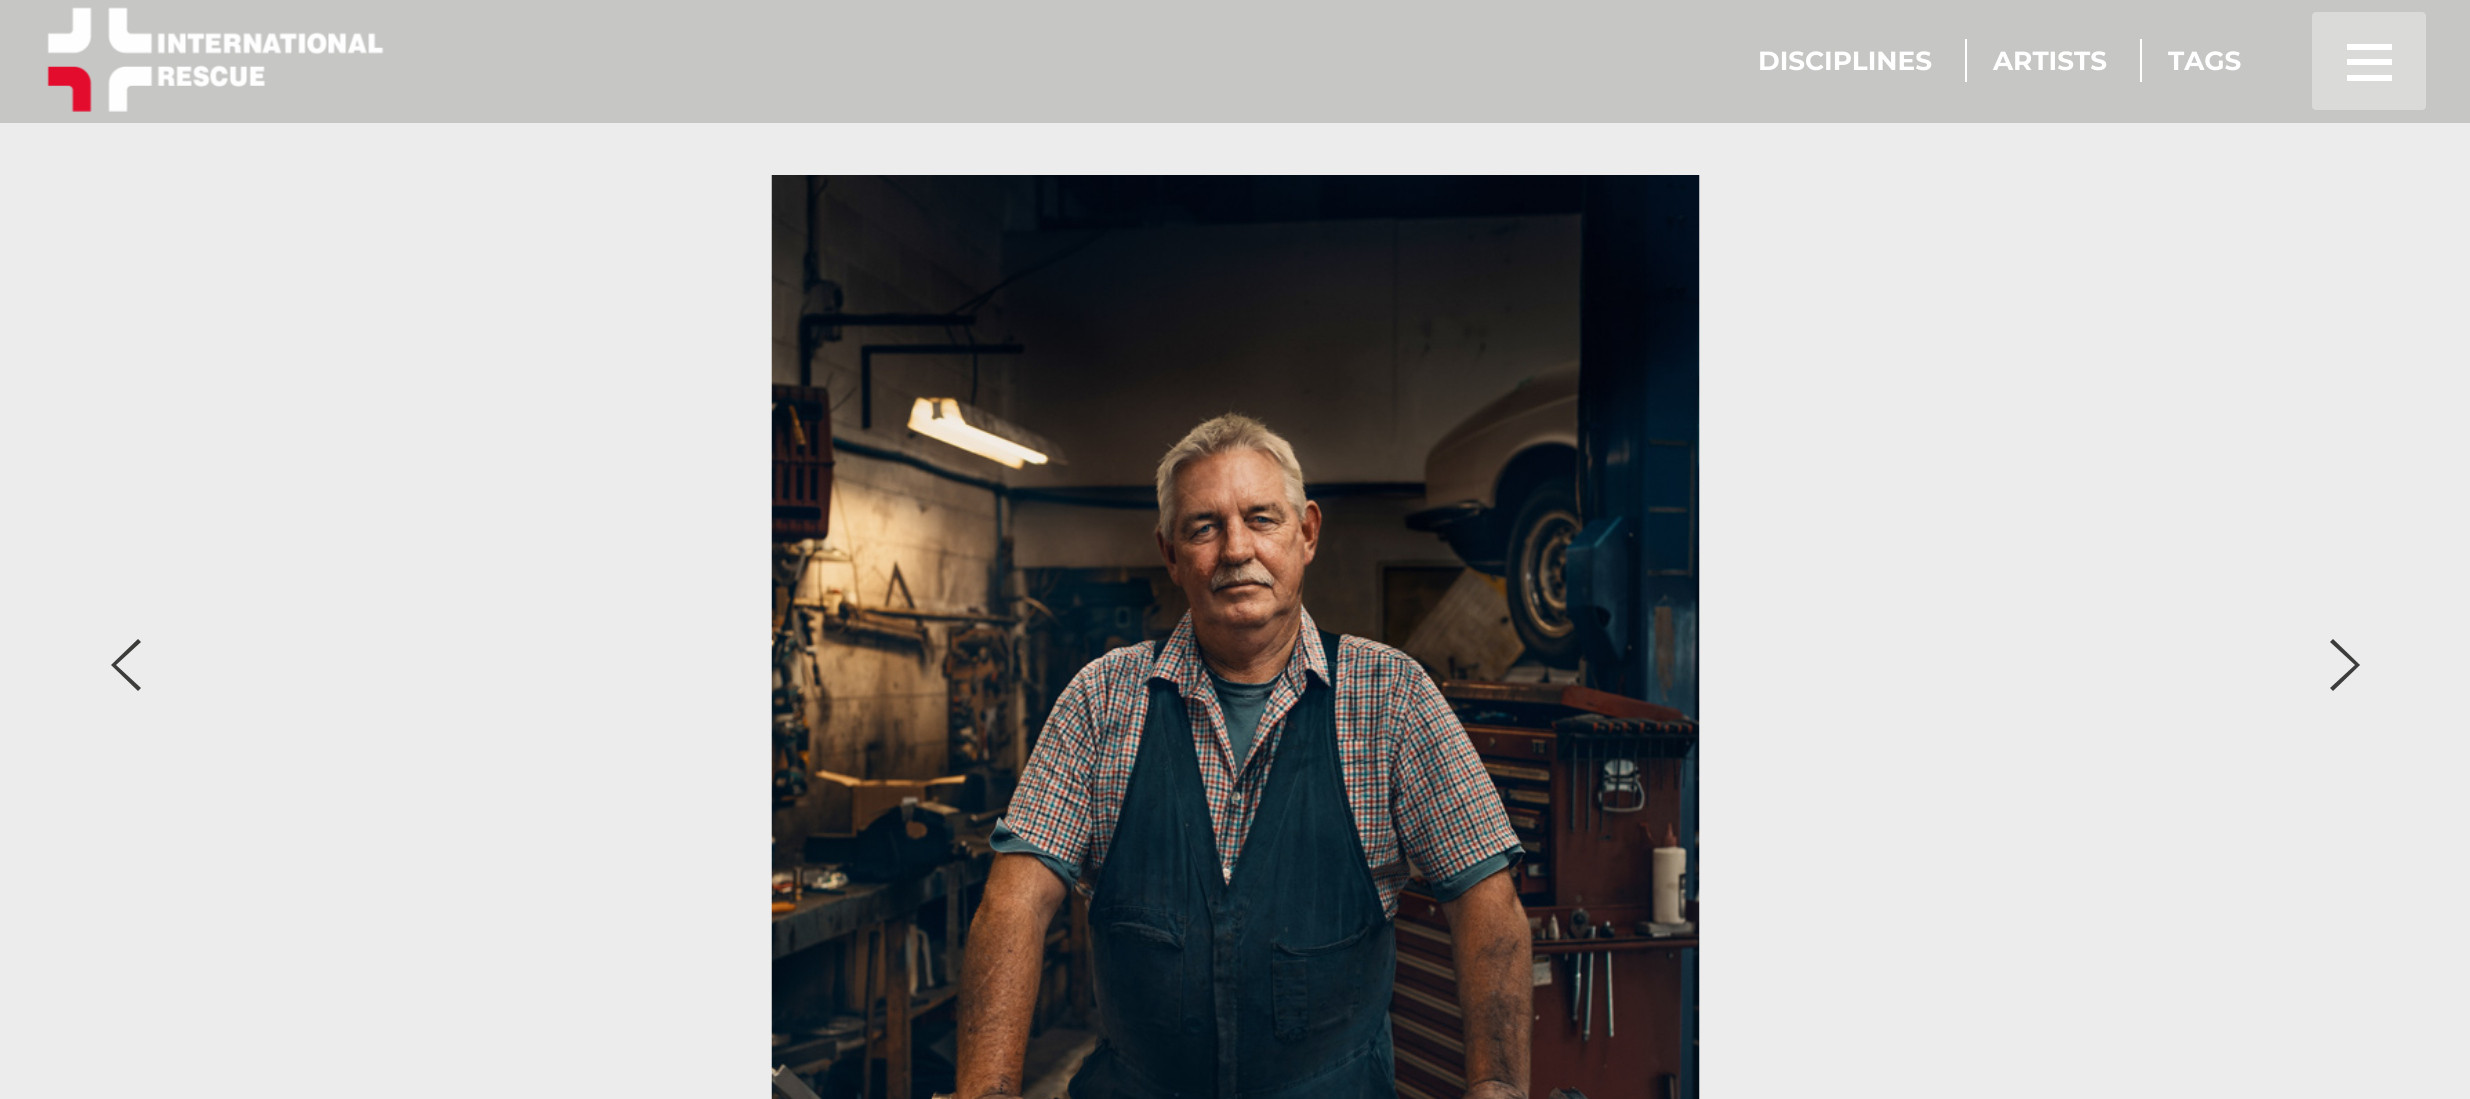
#include <cairo.h>
#include <math.h>
#include <stddef.h>

typedef struct { const char *family; double size; int italic, bold; unsigned color; } style_t;
static cairo_t *ctx;

static void ink(unsigned color) {
    cairo_set_source_rgb(ctx, (color >> 16) / 255.0, (color >> 8 & 255) / 255.0, (color & 255) / 255.0);
}

static void write(double x, double y, const char *s, const style_t *st) {
    cairo_select_font_face(ctx, st->family, st->italic ? CAIRO_FONT_SLANT_ITALIC : CAIRO_FONT_SLANT_NORMAL,
        st->bold ? CAIRO_FONT_WEIGHT_BOLD : CAIRO_FONT_WEIGHT_NORMAL);
    cairo_set_font_size(ctx, st->size);
    ink(st->color);
    cairo_move_to(ctx, x, y);
    cairo_show_text(ctx, s);
}

static void block(double x, double y, double w, double h, unsigned color) {
    ink(color);
    cairo_rectangle(ctx, x, y, w, h);
    cairo_fill(ctx);
}

static void round_path(double x, double y, double w, double h, double r) {
    cairo_new_sub_path(ctx);
    cairo_arc(ctx, x + w - r, y + h - r, r, 0, M_PI / 2);
    cairo_arc(ctx, x + r, y + h - r, r, M_PI / 2, M_PI);
    cairo_arc(ctx, x + r, y + r, r, M_PI, 1.5 * M_PI);
    cairo_arc(ctx, x + w - r, y + r, r, 1.5 * M_PI, 2 * M_PI);
    cairo_close_path(ctx);
}

static void paste(const char *path, double x, double y, double w, double h) {
    cairo_surface_t *image = cairo_image_surface_create_from_png(path);
    cairo_save(ctx);
    cairo_set_source_surface(ctx, image, x, y);
    cairo_rectangle(ctx, x, y, w, h);
    cairo_fill(ctx);
    cairo_restore(ctx);
    cairo_surface_destroy(image);
}

static const style_t s1 = {"Montserrat", 26.25, 0, 1, 0xffffff};

int main(void) {
    cairo_surface_t *surface = cairo_image_surface_create(CAIRO_FORMAT_RGB24, 2470, 1099);
    ctx = cairo_create(surface);
    cairo_font_options_t *options = cairo_font_options_create();
    cairo_font_options_set_hint_metrics(options, CAIRO_HINT_METRICS_OFF);
    cairo_font_options_set_hint_style(options, CAIRO_HINT_STYLE_NONE);
    cairo_set_font_options(ctx, options);
    cairo_set_miter_limit(ctx, 4);
    ink(0xececec);
    cairo_paint(ctx);
    block(0, 0, 2470, 123, 0xc6c6c5);
    paste("pic1.png", 47, 7, 337, 105);
    write(1758, 70, "DISCIPLINES", &s1);
    block(1965, 39, 2, 43, 0xffffff);
    write(1993, 70, "ARTISTS", &s1);
    block(2140, 39, 2, 43, 0xffffff);
    write(2168, 70, "TAGS", &s1);
    ink(0xdadad9);
    round_path(2312, 12, 114, 98, 4);
    cairo_fill(ctx);
    ink(0xffffff);
    cairo_new_path(ctx);
    cairo_move_to(ctx, 2347, 44);
    cairo_line_to(ctx, 2392, 44);
    cairo_line_to(ctx, 2392, 50);
    cairo_line_to(ctx, 2347, 50);
    cairo_close_path(ctx);
    cairo_move_to(ctx, 2347, 59);
    cairo_line_to(ctx, 2392, 59);
    cairo_line_to(ctx, 2392, 65);
    cairo_line_to(ctx, 2347, 65);
    cairo_close_path(ctx);
    cairo_move_to(ctx, 2347, 75);
    cairo_line_to(ctx, 2392, 75);
    cairo_line_to(ctx, 2392, 81);
    cairo_line_to(ctx, 2347, 81);
    cairo_close_path(ctx);
    cairo_fill(ctx);
    ink(0x3c3c3b);
    cairo_new_path(ctx);
    cairo_move_to(ctx, 138, 691);
    cairo_line_to(ctx, 111, 665);
    cairo_line_to(ctx, 138, 639);
    cairo_line_to(ctx, 141, 642);
    cairo_line_to(ctx, 116, 665);
    cairo_line_to(ctx, 141, 688);
    cairo_close_path(ctx);
    cairo_fill(ctx);
    paste("pic2.png", 771, 175, 929, 924);
    cairo_new_path(ctx);
    cairo_move_to(ctx, 2333, 691);
    cairo_line_to(ctx, 2330, 688);
    cairo_line_to(ctx, 2355, 665);
    cairo_line_to(ctx, 2330, 642);
    cairo_line_to(ctx, 2333, 639);
    cairo_line_to(ctx, 2360, 665);
    cairo_close_path(ctx);
    cairo_fill(ctx);
    cairo_surface_write_to_png(surface, "screenshot.png");
    cairo_font_options_destroy(options);
    cairo_destroy(ctx);
    cairo_surface_destroy(surface);
    return 0;
}
